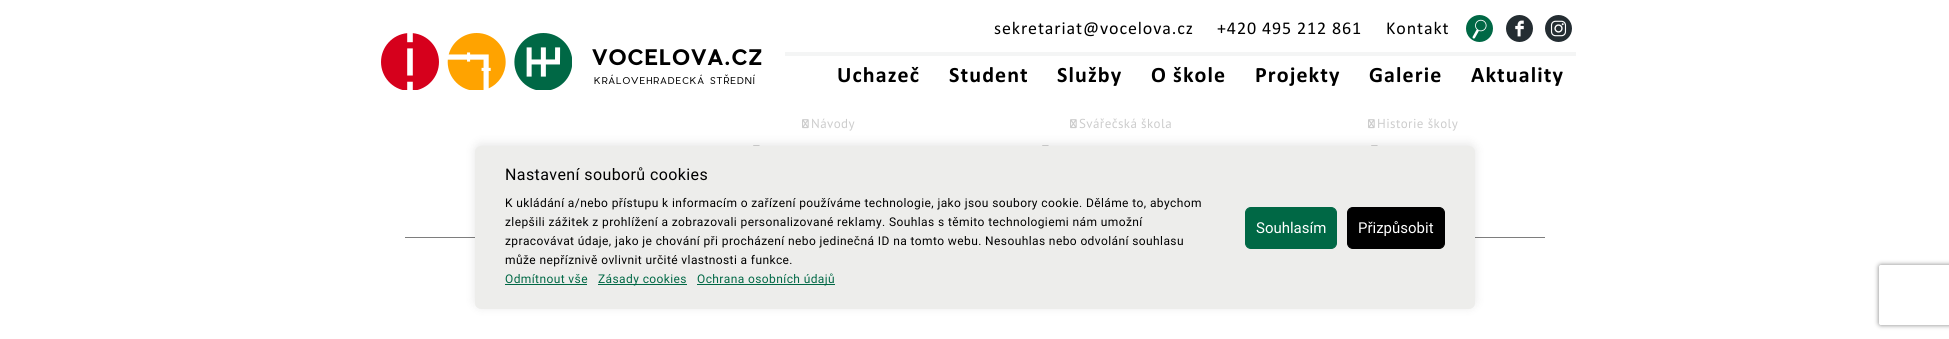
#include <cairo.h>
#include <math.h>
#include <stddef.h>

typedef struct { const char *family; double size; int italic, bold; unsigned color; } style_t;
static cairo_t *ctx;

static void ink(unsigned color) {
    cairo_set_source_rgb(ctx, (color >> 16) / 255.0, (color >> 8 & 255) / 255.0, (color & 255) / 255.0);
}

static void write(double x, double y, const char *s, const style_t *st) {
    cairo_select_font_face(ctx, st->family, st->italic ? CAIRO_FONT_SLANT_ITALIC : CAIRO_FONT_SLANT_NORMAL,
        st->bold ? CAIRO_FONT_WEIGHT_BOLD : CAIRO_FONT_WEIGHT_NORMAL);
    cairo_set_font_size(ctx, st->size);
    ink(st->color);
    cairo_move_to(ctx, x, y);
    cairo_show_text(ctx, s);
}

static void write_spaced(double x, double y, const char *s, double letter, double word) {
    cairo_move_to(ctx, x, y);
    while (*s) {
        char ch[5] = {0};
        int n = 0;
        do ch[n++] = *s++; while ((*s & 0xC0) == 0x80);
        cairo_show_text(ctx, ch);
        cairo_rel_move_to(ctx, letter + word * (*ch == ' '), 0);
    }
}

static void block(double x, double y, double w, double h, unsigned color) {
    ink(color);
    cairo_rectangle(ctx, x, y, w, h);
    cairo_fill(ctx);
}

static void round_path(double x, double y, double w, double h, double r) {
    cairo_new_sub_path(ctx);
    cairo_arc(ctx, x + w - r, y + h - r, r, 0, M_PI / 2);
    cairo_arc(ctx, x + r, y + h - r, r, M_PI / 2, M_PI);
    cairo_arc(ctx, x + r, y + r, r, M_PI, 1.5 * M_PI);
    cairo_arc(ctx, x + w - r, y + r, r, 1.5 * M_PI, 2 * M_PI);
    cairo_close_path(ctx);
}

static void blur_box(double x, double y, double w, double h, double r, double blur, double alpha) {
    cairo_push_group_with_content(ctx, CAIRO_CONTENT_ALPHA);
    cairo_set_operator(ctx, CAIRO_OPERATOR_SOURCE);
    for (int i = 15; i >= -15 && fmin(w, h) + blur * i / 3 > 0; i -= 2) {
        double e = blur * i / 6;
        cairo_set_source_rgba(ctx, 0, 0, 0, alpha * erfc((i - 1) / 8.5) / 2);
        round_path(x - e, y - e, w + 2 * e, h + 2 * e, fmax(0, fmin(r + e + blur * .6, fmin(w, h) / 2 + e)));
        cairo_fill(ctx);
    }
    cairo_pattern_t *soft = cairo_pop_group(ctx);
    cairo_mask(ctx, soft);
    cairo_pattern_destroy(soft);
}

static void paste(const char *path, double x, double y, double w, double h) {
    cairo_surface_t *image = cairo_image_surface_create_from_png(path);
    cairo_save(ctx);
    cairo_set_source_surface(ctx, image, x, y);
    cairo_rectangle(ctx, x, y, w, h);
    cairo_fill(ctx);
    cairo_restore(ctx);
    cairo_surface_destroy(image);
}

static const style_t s1 = {"Roboto", 15, 0, 0, 0xffffff};

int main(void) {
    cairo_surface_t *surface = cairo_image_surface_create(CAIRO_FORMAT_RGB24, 1949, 339);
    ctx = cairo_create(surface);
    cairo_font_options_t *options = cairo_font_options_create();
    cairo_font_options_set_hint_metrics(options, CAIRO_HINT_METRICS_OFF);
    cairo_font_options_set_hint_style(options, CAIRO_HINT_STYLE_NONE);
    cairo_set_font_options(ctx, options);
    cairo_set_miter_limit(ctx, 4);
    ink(0xffffff);
    cairo_paint(ctx);
    paste("pic1.png", 381, 33, 191, 57);
    cairo_select_font_face(ctx, "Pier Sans", CAIRO_FONT_SLANT_NORMAL, CAIRO_FONT_WEIGHT_BOLD);
    cairo_set_font_size(ctx, 21);
    ink(0x000000);
    write_spaced(592, 65, "VOCELOVA.CZ", 1.1, 0);
    cairo_select_font_face(ctx, "Pier Sans Light", CAIRO_FONT_SLANT_NORMAL, CAIRO_FONT_WEIGHT_NORMAL);
    cairo_set_font_size(ctx, 9.25);
    write_spaced(594, 84, "KRÁLOVEHRADECKÁ STŘEDNÍ", 1.1, 0);
    block(785, 52, 791, 4, 0xf4f5f5);
    cairo_select_font_face(ctx, "Calibri", CAIRO_FONT_SLANT_NORMAL, CAIRO_FONT_WEIGHT_NORMAL);
    cairo_set_font_size(ctx, 18);
    ink(0x000000);
    write_spaced(994, 34, "sekretariat@vocelova.cz", 0.9, 0);
    write_spaced(1217, 34, "+420 495 212 861", 0.9, 0);
    write_spaced(1386, 34, "Kontakt", 0.9, 0);
    paste("pic2.png", 1466, 15, 27, 27);
    paste("pic3.png", 1506, 15, 27, 27);
    paste("pic4.png", 1545, 15, 27, 27);
    cairo_select_font_face(ctx, "Calibri", CAIRO_FONT_SLANT_NORMAL, CAIRO_FONT_WEIGHT_BOLD);
    cairo_set_font_size(ctx, 22);
    write_spaced(837, 82, "Uchazeč", 1.1, 0);
    write_spaced(949, 82, "Student", 1.1, 0);
    write_spaced(1057, 82, "Služby", 1.1, 0);
    write_spaced(1151, 82, "O škole", 1.1, 0);
    write_spaced(1255, 82, "Projekty", 1.1, 0);
    write_spaced(1369, 82, "Galerie", 1.1, 0);
    write_spaced(1471, 82, "Aktuality", 1.1, 0);
    paste("pic5.png", 802, 119, 7, 10);
    cairo_select_font_face(ctx, "PT Sans", CAIRO_FONT_SLANT_NORMAL, CAIRO_FONT_WEIGHT_NORMAL);
    cairo_set_font_size(ctx, 13);
    ink(0xcccccc);
    write_spaced(811, 128, "Návody", 0.4, 0);
    paste("pic6.png", 753, 145, 7, 1);
    paste("pic5.png", 1070, 119, 7, 10);
    write_spaced(1079, 128, "Svářečská škola", 0.4, 0);
    paste("pic6.png", 1042, 145, 7, 1);
    paste("pic5.png", 1368, 119, 7, 10);
    write_spaced(1377, 128, "Historie školy", 0.4, 0);
    paste("pic6.png", 1371, 145, 7, 1);
    block(405, 237, 1140, 1, 0x7e7e7e);
    ink(0x000000);
    blur_box(475, 144, 1000, 163, 6, 5, 0.1);
    ink(0xededeb);
    round_path(475, 146, 1000, 163, 6);
    cairo_fill(ctx);
    cairo_select_font_face(ctx, "Roboto", CAIRO_FONT_SLANT_NORMAL, CAIRO_FONT_WEIGHT_NORMAL);
    cairo_set_font_size(ctx, 16);
    ink(0x000000);
    write_spaced(505, 180, "Nastavení souborů cookies", 0.4, 0);
    cairo_set_font_size(ctx, 12);
    write_spaced(505, 207, "K ukládání a/nebo přístupu k informacím o zařízení používáme technologie, jako jsou soubory cookie. Děláme to, abychom", 0.4, 0);
    write_spaced(505, 226, "zlepšili zážitek z prohlížení a zobrazovali personalizované reklamy. Souhlas s těmito technologiemi nám umožní", 0.4, 0);
    write_spaced(505, 245, "zpracovávat údaje, jako je chování při procházení nebo jedinečná ID na tomto webu. Nesouhlas nebo odvolání souhlasu", 0.4, 0);
    write_spaced(505, 264, "může nepříznivě ovlivnit určité vlastnosti a funkce.", 0.4, 0);
    ink(0x006845);
    write_spaced(505, 283, "Odmítnout vše", 0.4, 0);
    block(505, 284, 82, 1, 0x006845);
    block(598, 284, 89, 1, 0x006845);
    write_spaced(598, 283, "Zásady cookies", 0.4, 0);
    block(697, 284, 138, 1, 0x006845);
    write_spaced(697, 283, "Ochrana osobních údajů", 0.4, 0);
    round_path(1245.5, 207.5, 91, 41, 5.5);
    cairo_fill_preserve(ctx);
    cairo_set_line_width(ctx, 1);
    cairo_stroke(ctx);
    write(1256, 233, "Souhlasím", &s1);
    ink(0x000000);
    round_path(1347.5, 207.5, 97, 41, 5.5);
    cairo_fill_preserve(ctx);
    cairo_stroke(ctx);
    write(1358, 233, "Přizpůsobit", &s1);
    cairo_save(ctx);
    cairo_set_fill_rule(ctx, CAIRO_FILL_RULE_EVEN_ODD);
    cairo_new_path(ctx);
    cairo_move_to(ctx, 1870, 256);
    cairo_line_to(ctx, 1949, 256);
    cairo_line_to(ctx, 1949, 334);
    cairo_line_to(ctx, 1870, 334);
    cairo_close_path(ctx);
    cairo_move_to(ctx, 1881, 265);
    cairo_line_to(ctx, 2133, 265);
    cairo_curve_to(ctx, 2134, 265, 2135, 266, 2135, 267);
    cairo_line_to(ctx, 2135, 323);
    cairo_curve_to(ctx, 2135, 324, 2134, 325, 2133, 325);
    cairo_line_to(ctx, 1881, 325);
    cairo_curve_to(ctx, 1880, 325, 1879, 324, 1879, 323);
    cairo_line_to(ctx, 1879, 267);
    cairo_curve_to(ctx, 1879, 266, 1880, 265, 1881, 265);
    cairo_close_path(ctx);
    cairo_clip(ctx);
    ink(0x808080);
    blur_box(1879, 265, 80, 60, 2, 2.5, 1);
    cairo_restore(ctx);
    cairo_surface_write_to_png(surface, "screenshot.png");
    cairo_font_options_destroy(options);
    cairo_destroy(ctx);
    cairo_surface_destroy(surface);
    return 0;
}
